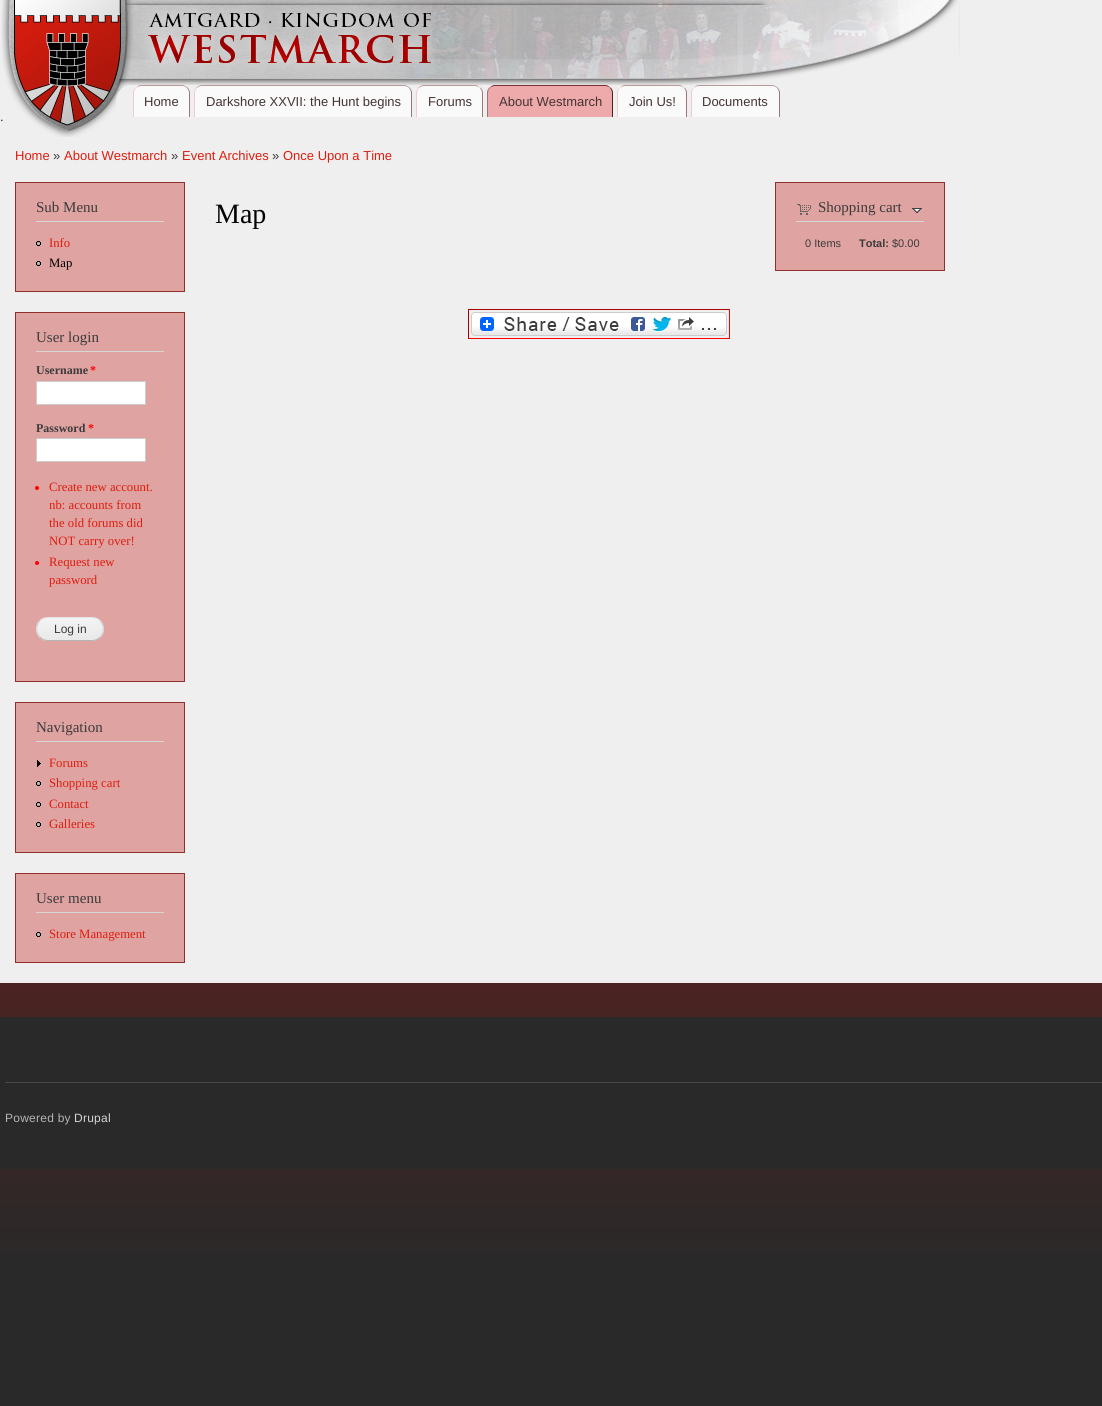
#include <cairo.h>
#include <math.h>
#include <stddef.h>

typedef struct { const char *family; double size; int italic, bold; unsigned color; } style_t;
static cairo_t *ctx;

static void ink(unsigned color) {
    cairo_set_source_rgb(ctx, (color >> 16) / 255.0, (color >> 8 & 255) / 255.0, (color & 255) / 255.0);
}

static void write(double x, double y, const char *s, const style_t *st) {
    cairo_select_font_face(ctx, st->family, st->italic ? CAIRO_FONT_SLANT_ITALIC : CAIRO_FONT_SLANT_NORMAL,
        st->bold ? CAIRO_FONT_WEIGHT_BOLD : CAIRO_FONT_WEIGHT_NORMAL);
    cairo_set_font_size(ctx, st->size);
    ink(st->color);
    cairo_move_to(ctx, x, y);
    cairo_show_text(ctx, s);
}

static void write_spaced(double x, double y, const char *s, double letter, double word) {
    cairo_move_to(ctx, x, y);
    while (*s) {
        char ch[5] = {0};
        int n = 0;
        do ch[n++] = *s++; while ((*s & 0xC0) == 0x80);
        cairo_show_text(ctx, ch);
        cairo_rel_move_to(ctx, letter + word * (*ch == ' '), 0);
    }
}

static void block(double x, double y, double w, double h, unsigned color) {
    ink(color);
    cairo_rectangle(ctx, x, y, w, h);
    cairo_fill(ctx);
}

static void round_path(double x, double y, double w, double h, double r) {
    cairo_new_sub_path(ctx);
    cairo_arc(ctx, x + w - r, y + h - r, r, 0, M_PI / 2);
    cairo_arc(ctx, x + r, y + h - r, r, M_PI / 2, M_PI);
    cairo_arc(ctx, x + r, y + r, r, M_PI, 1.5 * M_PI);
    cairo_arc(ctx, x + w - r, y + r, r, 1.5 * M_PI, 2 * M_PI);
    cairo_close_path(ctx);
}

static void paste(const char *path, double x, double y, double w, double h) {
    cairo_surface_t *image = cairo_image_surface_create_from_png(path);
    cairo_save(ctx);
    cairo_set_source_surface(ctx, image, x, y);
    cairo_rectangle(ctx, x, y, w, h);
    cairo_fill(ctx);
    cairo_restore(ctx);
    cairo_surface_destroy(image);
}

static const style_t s1 = {"Liberation Serif", 14, 0, 0, 0x3b3b3b};
static const style_t s2 = {"Liberation Sans", 13, 0, 0, 0x443333};
static const style_t s3 = {"Liberation Sans", 13, 0, 0, 0xdd1d0f};
static const style_t s4 = {"Liberation Sans", 13, 0, 0, 0x3b3b3b};
static const style_t s5 = {"Liberation Serif", 15, 0, 0, 0x3b3b3b};
static const style_t s6 = {"Liberation Serif", 12.75, 0, 0, 0xdd1d0f};
static const style_t s7 = {"Liberation Serif", 12.75, 0, 0, 0x000000};
static const style_t s8 = {"Liberation Serif", 12, 0, 1, 0x3b3b3b};
static const style_t s9 = {"Liberation Serif", 12, 0, 1, 0xff0000};
static const style_t s10 = {"Liberation Sans", 12, 0, 0, 0x3b3b3b};
static const style_t s11 = {"Liberation Serif", 28, 0, 0, 0x000000};
static const style_t s12 = {"Liberation Sans", 11, 0, 0, 0x3b3b3b};
static const style_t s13 = {"Liberation Sans", 11, 0, 1, 0x3b3b3b};

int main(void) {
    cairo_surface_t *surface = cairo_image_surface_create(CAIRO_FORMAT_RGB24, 1102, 1406);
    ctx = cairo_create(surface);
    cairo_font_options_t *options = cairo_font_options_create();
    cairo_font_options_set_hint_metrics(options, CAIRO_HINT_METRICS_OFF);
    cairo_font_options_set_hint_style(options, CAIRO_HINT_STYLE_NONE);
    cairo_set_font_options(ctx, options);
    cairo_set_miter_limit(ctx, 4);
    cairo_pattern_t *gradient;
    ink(0xffffff);
    cairo_paint(ctx);
    gradient = cairo_pattern_create_linear(551, 0, 551, 1406);
    cairo_pattern_add_color_stop_rgba(gradient, 0, 0.749, 0.047, 0.027, 1);
    cairo_pattern_add_color_stop_rgba(gradient, 0.9, 0.161, 0.161, 0.161, 1);
    cairo_set_source(ctx, gradient);
    cairo_pattern_destroy(gradient);
    cairo_rectangle(ctx, 0, 983, 1102, 423);
    cairo_fill(ctx);
    block(0, 0, 1102, 983, 0xefefef);
    write(0, 121, ".", &s1);
    paste("pic1.png", 1, 0, 959, 137);
    ink(0xefefef);
    round_path(116, 85, 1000, 32, 16);
    cairo_fill(ctx);
    ink(0xfafafa);
    cairo_new_path(ctx);
    cairo_move_to(ctx, 141, 85);
    cairo_line_to(ctx, 182, 85);
    cairo_curve_to(ctx, 186.5, 85, 190, 88.5, 190, 93);
    cairo_line_to(ctx, 190, 117);
    cairo_line_to(ctx, 133, 117);
    cairo_line_to(ctx, 133, 93);
    cairo_curve_to(ctx, 133, 88.5, 136.5, 85, 141, 85);
    cairo_close_path(ctx);
    cairo_fill(ctx);
    ink(0xbb9999);
    cairo_new_path(ctx);
    cairo_move_to(ctx, 141, 85);
    cairo_curve_to(ctx, 139, 85, 137, 86, 136, 88);
    cairo_curve_to(ctx, 137, 87, 139, 86, 141, 86);
    cairo_line_to(ctx, 182, 86);
    cairo_curve_to(ctx, 184, 86, 186, 87, 187, 88);
    cairo_line_to(ctx, 188, 88);
    cairo_curve_to(ctx, 186, 86, 184, 85, 182, 85);
    cairo_close_path(ctx);
    cairo_fill(ctx);
    ink(0x997777);
    cairo_new_path(ctx);
    cairo_move_to(ctx, 189, 117);
    cairo_line_to(ctx, 190, 117);
    cairo_line_to(ctx, 190, 93);
    cairo_curve_to(ctx, 190, 91, 189, 89, 187.5, 87.5);
    cairo_line_to(ctx, 187, 88);
    cairo_curve_to(ctx, 188, 89, 189, 91, 189, 93);
    cairo_close_path(ctx);
    cairo_fill(ctx);
    ink(0xeecccc);
    cairo_new_path(ctx);
    cairo_move_to(ctx, 133, 117);
    cairo_line_to(ctx, 134, 117);
    cairo_line_to(ctx, 134, 93);
    cairo_curve_to(ctx, 134, 91, 135, 89, 136, 88);
    cairo_line_to(ctx, 135.5, 87.5);
    cairo_curve_to(ctx, 134, 89, 133, 91, 133, 93);
    cairo_close_path(ctx);
    cairo_fill(ctx);
    write(144, 106, "Home", &s2);
    ink(0xfafafa);
    cairo_new_path(ctx);
    cairo_move_to(ctx, 202, 85);
    cairo_line_to(ctx, 404, 85);
    cairo_curve_to(ctx, 408.5, 85, 412, 88.5, 412, 93);
    cairo_line_to(ctx, 412, 117);
    cairo_line_to(ctx, 194, 117);
    cairo_line_to(ctx, 194, 93);
    cairo_curve_to(ctx, 194, 88.5, 197.5, 85, 202, 85);
    cairo_close_path(ctx);
    cairo_fill(ctx);
    ink(0xbb9999);
    cairo_new_path(ctx);
    cairo_move_to(ctx, 202, 85);
    cairo_curve_to(ctx, 200, 85, 198, 86, 196, 88);
    cairo_line_to(ctx, 197, 88);
    cairo_curve_to(ctx, 198, 87, 200, 86, 202, 86);
    cairo_line_to(ctx, 404, 86);
    cairo_curve_to(ctx, 406, 86, 408, 87, 409, 88);
    cairo_line_to(ctx, 410, 88);
    cairo_curve_to(ctx, 408, 86, 406, 85, 404, 85);
    cairo_close_path(ctx);
    cairo_fill(ctx);
    ink(0x997777);
    cairo_new_path(ctx);
    cairo_move_to(ctx, 411, 117);
    cairo_line_to(ctx, 412, 117);
    cairo_line_to(ctx, 412, 93);
    cairo_curve_to(ctx, 412, 91, 411, 89, 409.5, 87.5);
    cairo_line_to(ctx, 409, 88);
    cairo_curve_to(ctx, 410, 89, 411, 91, 411, 93);
    cairo_close_path(ctx);
    cairo_fill(ctx);
    ink(0xeecccc);
    cairo_new_path(ctx);
    cairo_move_to(ctx, 194, 117);
    cairo_line_to(ctx, 195, 117);
    cairo_line_to(ctx, 195, 93);
    cairo_curve_to(ctx, 195, 91, 196, 89, 197, 88);
    cairo_line_to(ctx, 196.5, 87.5);
    cairo_curve_to(ctx, 195, 89, 194, 91, 194, 93);
    cairo_close_path(ctx);
    cairo_fill(ctx);
    write(206, 106, "Darkshore XXVII: the Hunt begins", &s2);
    ink(0xfafafa);
    cairo_new_path(ctx);
    cairo_move_to(ctx, 424, 85);
    cairo_line_to(ctx, 475, 85);
    cairo_curve_to(ctx, 479.5, 85, 483, 88.5, 483, 93);
    cairo_line_to(ctx, 483, 117);
    cairo_line_to(ctx, 416, 117);
    cairo_line_to(ctx, 416, 93);
    cairo_curve_to(ctx, 416, 88.5, 419.5, 85, 424, 85);
    cairo_close_path(ctx);
    cairo_fill(ctx);
    ink(0xbb9999);
    cairo_new_path(ctx);
    cairo_move_to(ctx, 424, 85);
    cairo_curve_to(ctx, 422, 85, 420, 86, 418, 88);
    cairo_line_to(ctx, 419, 88);
    cairo_curve_to(ctx, 420, 87, 422, 86, 424, 86);
    cairo_line_to(ctx, 475, 86);
    cairo_curve_to(ctx, 477, 86, 479, 87, 480, 88);
    cairo_curve_to(ctx, 479, 86, 477, 85, 475, 85);
    cairo_close_path(ctx);
    cairo_fill(ctx);
    ink(0x997777);
    cairo_new_path(ctx);
    cairo_move_to(ctx, 482, 117);
    cairo_line_to(ctx, 483, 117);
    cairo_line_to(ctx, 483, 93);
    cairo_curve_to(ctx, 483, 91, 482, 89, 480.5, 87.5);
    cairo_line_to(ctx, 480, 88);
    cairo_curve_to(ctx, 481, 89, 482, 91, 482, 93);
    cairo_close_path(ctx);
    cairo_fill(ctx);
    ink(0xeecccc);
    cairo_new_path(ctx);
    cairo_move_to(ctx, 416, 117);
    cairo_line_to(ctx, 417, 117);
    cairo_line_to(ctx, 417, 93);
    cairo_curve_to(ctx, 417, 91, 418, 89, 419, 88);
    cairo_line_to(ctx, 418.5, 87.5);
    cairo_curve_to(ctx, 417, 89, 416, 91, 416, 93);
    cairo_close_path(ctx);
    cairo_fill(ctx);
    write(428, 106, "Forums", &s2);
    ink(0xeeaaaa);
    cairo_new_path(ctx);
    cairo_move_to(ctx, 495, 85);
    cairo_line_to(ctx, 605, 85);
    cairo_curve_to(ctx, 609.5, 85, 613, 88.5, 613, 93);
    cairo_line_to(ctx, 613, 117);
    cairo_line_to(ctx, 487, 117);
    cairo_line_to(ctx, 487, 93);
    cairo_curve_to(ctx, 487, 88.5, 490.5, 85, 495, 85);
    cairo_close_path(ctx);
    cairo_fill(ctx);
    ink(0x773333);
    cairo_new_path(ctx);
    cairo_move_to(ctx, 495, 85);
    cairo_curve_to(ctx, 493, 85, 491, 86, 490, 88);
    cairo_curve_to(ctx, 491, 87, 493, 86, 495, 86);
    cairo_line_to(ctx, 605, 86);
    cairo_curve_to(ctx, 607, 86, 609, 87, 610, 88);
    cairo_curve_to(ctx, 609, 86, 607, 85, 605, 85);
    cairo_close_path(ctx);
    cairo_fill(ctx);
    ink(0x442222);
    cairo_new_path(ctx);
    cairo_move_to(ctx, 612, 117);
    cairo_line_to(ctx, 613, 117);
    cairo_line_to(ctx, 613, 93);
    cairo_curve_to(ctx, 613, 91, 612, 89, 610.5, 87.5);
    cairo_line_to(ctx, 610, 88);
    cairo_curve_to(ctx, 611, 89, 612, 91, 612, 93);
    cairo_close_path(ctx);
    cairo_fill(ctx);
    ink(0x997777);
    cairo_new_path(ctx);
    cairo_move_to(ctx, 487, 117);
    cairo_line_to(ctx, 488, 117);
    cairo_line_to(ctx, 488, 93);
    cairo_curve_to(ctx, 488, 91, 489, 89, 490, 88);
    cairo_line_to(ctx, 489.5, 87.5);
    cairo_curve_to(ctx, 488, 89, 487, 91, 487, 93);
    cairo_close_path(ctx);
    cairo_fill(ctx);
    write(499, 106, "About Westmarch", &s2);
    ink(0xfafafa);
    cairo_new_path(ctx);
    cairo_move_to(ctx, 625, 85);
    cairo_line_to(ctx, 679, 85);
    cairo_curve_to(ctx, 683.5, 85, 687, 88.5, 687, 93);
    cairo_line_to(ctx, 687, 117);
    cairo_line_to(ctx, 617, 117);
    cairo_line_to(ctx, 617, 93);
    cairo_curve_to(ctx, 617, 88.5, 620.5, 85, 625, 85);
    cairo_close_path(ctx);
    cairo_fill(ctx);
    ink(0xbb9999);
    cairo_new_path(ctx);
    cairo_move_to(ctx, 625, 85);
    cairo_curve_to(ctx, 623, 85, 621, 86, 620, 88);
    cairo_curve_to(ctx, 621, 87, 623, 86, 625, 86);
    cairo_line_to(ctx, 679, 86);
    cairo_curve_to(ctx, 681, 86, 683, 87, 684, 88);
    cairo_curve_to(ctx, 683, 86, 681, 85, 679, 85);
    cairo_close_path(ctx);
    cairo_fill(ctx);
    ink(0x997777);
    cairo_new_path(ctx);
    cairo_move_to(ctx, 686, 117);
    cairo_line_to(ctx, 687, 117);
    cairo_line_to(ctx, 687, 93);
    cairo_curve_to(ctx, 687, 91, 686, 89, 684.5, 87.5);
    cairo_line_to(ctx, 684, 88);
    cairo_curve_to(ctx, 685, 89, 686, 91, 686, 93);
    cairo_close_path(ctx);
    cairo_fill(ctx);
    ink(0xeecccc);
    cairo_new_path(ctx);
    cairo_move_to(ctx, 617, 117);
    cairo_line_to(ctx, 618, 117);
    cairo_line_to(ctx, 618, 93);
    cairo_curve_to(ctx, 618, 91, 619, 89, 620, 88);
    cairo_line_to(ctx, 619.5, 87.5);
    cairo_curve_to(ctx, 618, 89, 617, 91, 617, 93);
    cairo_close_path(ctx);
    cairo_fill(ctx);
    write(629, 106, "Join Us!", &s2);
    ink(0xfafafa);
    cairo_new_path(ctx);
    cairo_move_to(ctx, 699, 85);
    cairo_line_to(ctx, 772, 85);
    cairo_curve_to(ctx, 776.5, 85, 780, 88.5, 780, 93);
    cairo_line_to(ctx, 780, 117);
    cairo_line_to(ctx, 691, 117);
    cairo_line_to(ctx, 691, 93);
    cairo_curve_to(ctx, 691, 88.5, 694.5, 85, 699, 85);
    cairo_close_path(ctx);
    cairo_fill(ctx);
    ink(0xbb9999);
    cairo_new_path(ctx);
    cairo_move_to(ctx, 699, 85);
    cairo_curve_to(ctx, 697, 85, 695, 86, 694, 88);
    cairo_curve_to(ctx, 695, 87, 697, 86, 699, 86);
    cairo_line_to(ctx, 772, 86);
    cairo_curve_to(ctx, 774, 86, 776, 87, 777, 88);
    cairo_line_to(ctx, 778, 88);
    cairo_curve_to(ctx, 776, 86, 774, 85, 772, 85);
    cairo_close_path(ctx);
    cairo_fill(ctx);
    ink(0x997777);
    cairo_new_path(ctx);
    cairo_move_to(ctx, 779, 117);
    cairo_line_to(ctx, 780, 117);
    cairo_line_to(ctx, 780, 93);
    cairo_curve_to(ctx, 780, 91, 779, 89, 777.5, 87.5);
    cairo_line_to(ctx, 777, 88);
    cairo_curve_to(ctx, 778, 89, 779, 91, 779, 93);
    cairo_close_path(ctx);
    cairo_fill(ctx);
    ink(0xeecccc);
    cairo_new_path(ctx);
    cairo_move_to(ctx, 691, 117);
    cairo_line_to(ctx, 692, 117);
    cairo_line_to(ctx, 692, 93);
    cairo_curve_to(ctx, 692, 91, 693, 89, 694, 88);
    cairo_line_to(ctx, 693.5, 87.5);
    cairo_curve_to(ctx, 692, 89, 691, 91, 691, 93);
    cairo_close_path(ctx);
    cairo_fill(ctx);
    write(702, 106, "Documents", &s2);
    write(15, 160, "Home", &s3);
    write(53, 160, "»", &s4);
    write(64, 160, "About Westmarch", &s3);
    write(171, 160, "»", &s4);
    write(182, 160, "Event Archives", &s3);
    write(272, 160, "»", &s4);
    write(283, 160, "Once Upon a Time", &s3);
    ink(0xdfa3a1);
    cairo_rectangle(ctx, 15.5, 182.5, 169, 109);
    cairo_fill_preserve(ctx);
    ink(0x90302a);
    cairo_set_line_width(ctx, 1);
    cairo_stroke(ctx);
    block(36, 221, 128, 1, 0xd6d6d6);
    write(36, 212, "Sub Menu", &s5);
    paste("pic2.png", 36, 241, 5, 5);
    write(49, 247, "Info", &s6);
    paste("pic2.png", 36, 261, 5, 5);
    write(49, 267, "Map", &s7);
    ink(0xdfa3a1);
    cairo_rectangle(ctx, 15.5, 312.5, 169, 369);
    cairo_fill_preserve(ctx);
    ink(0x90302a);
    cairo_stroke(ctx);
    block(36, 351, 128, 1, 0xd6d6d6);
    write(36, 342, "User login", &s5);
    write(36, 374, "Username", &s8);
    write(90, 374, "*", &s9);
    ink(0xffffff);
    cairo_rectangle(ctx, 36.5, 381.5, 109, 23);
    cairo_fill_preserve(ctx);
    ink(0xcccccc);
    cairo_stroke(ctx);
    write(36, 432, "Password", &s8);
    write(88, 432, "*", &s9);
    ink(0xffffff);
    cairo_rectangle(ctx, 36.5, 438.5, 109, 23);
    cairo_fill_preserve(ctx);
    ink(0xcccccc);
    cairo_stroke(ctx);
    ink(0xff0000);
    cairo_arc(ctx, 37, 488, 2, 0, 2 * M_PI);
    cairo_fill(ctx);
    write(49, 491, "Create new account.", &s6);
    write(49, 509, "nb: accounts from", &s6);
    write(49, 527, "the old forums did", &s6);
    write(49, 545, "NOT carry over!", &s6);
    ink(0xff0000);
    cairo_new_path(ctx);
    cairo_arc(ctx, 37, 563, 2, 0, 2 * M_PI);
    cairo_fill(ctx);
    write(49, 566, "Request new", &s6);
    write(49, 584, "password", &s6);
    paste("pic3.png", 36, 618, 68, 23);
    cairo_new_path(ctx);
    cairo_move_to(ctx, 40, 621);
    cairo_curve_to(ctx, 42, 618.5, 45, 617.5, 48, 617.5);
    cairo_line_to(ctx, 92, 617.5);
    cairo_curve_to(ctx, 95, 617.5, 98, 618.5, 100, 621);
    ink(0xe4e4e4);
    cairo_stroke(ctx);
    cairo_new_path(ctx);
    cairo_move_to(ctx, 100, 621);
    cairo_curve_to(ctx, 104.5, 625.5, 104.5, 632.5, 100, 637);
    ink(0xd2d2d2);
    cairo_stroke(ctx);
    cairo_new_path(ctx);
    cairo_move_to(ctx, 100, 637);
    cairo_curve_to(ctx, 98, 639.5, 95, 640.5, 92, 640.5);
    cairo_line_to(ctx, 48, 640.5);
    cairo_curve_to(ctx, 45, 640.5, 42, 639.5, 40, 637);
    ink(0xb4b4b4);
    cairo_stroke(ctx);
    cairo_new_path(ctx);
    cairo_move_to(ctx, 40, 637);
    cairo_curve_to(ctx, 35.5, 632.5, 35.5, 625.5, 40, 621);
    ink(0xd2d2d2);
    cairo_stroke(ctx);
    write(54, 633, "Log in", &s10);
    ink(0xdfa3a1);
    cairo_rectangle(ctx, 15.5, 702.5, 169, 150);
    cairo_fill_preserve(ctx);
    ink(0x90302a);
    cairo_stroke(ctx);
    block(36, 741, 128, 1, 0xd6d6d6);
    write(36, 732, "Navigation", &s5);
    paste("pic4.png", 37, 760, 4, 7);
    write(49, 767, "Forums", &s6);
    paste("pic2.png", 36, 781, 5, 5);
    write(49, 787, "Shopping cart", &s6);
    paste("pic2.png", 36, 802, 5, 5);
    write(49, 808, "Contact", &s6);
    paste("pic2.png", 36, 822, 5, 5);
    write(49, 828, "Galleries", &s6);
    ink(0xdfa3a1);
    cairo_rectangle(ctx, 15.5, 873.5, 169, 89);
    cairo_fill_preserve(ctx);
    ink(0x90302a);
    cairo_stroke(ctx);
    block(36, 912, 128, 1, 0xd6d6d6);
    write(36, 903, "User menu", &s5);
    paste("pic2.png", 36, 932, 5, 5);
    write(49, 938, "Store Management", &s6);
    write(215, 223, "Map", &s11);
    block(468, 309, 262, 1, 0xaa0000);
    block(729, 309, 1, 30, 0xff0000);
    block(468, 338, 262, 1, 0xff0000);
    block(468, 309, 1, 30, 0xaa0000);
    paste("pic5.png", 471, 312, 256, 24);
    ink(0xdfa3a1);
    cairo_rectangle(ctx, 775.5, 182.5, 169, 88);
    cairo_fill_preserve(ctx);
    ink(0x90302a);
    cairo_stroke(ctx);
    block(796, 221, 128, 1, 0xd6d6d6);
    paste("pic6.png", 797, 204, 14, 11);
    write(818, 212, "Shopping cart", &s5);
    paste("pic7.png", 912, 208, 10, 5);
    write(805, 247, "0 Items", &s12);
    write(859, 247, "Total:", &s13);
    write(892, 247, "$0.00", &s12);
    block(0, 1017, 1102, 152, 0x292929);
    block(5, 1082, 1097, 1, 0x494949);
    cairo_set_font_size(ctx, 12);
    ink(0xb4b4b4);
    write_spaced(5, 1122, "Powered by", 0.25, 0);
    ink(0xd4d4d4);
    write_spaced(74, 1122, "Drupal", 0.25, 0);
    cairo_surface_write_to_png(surface, "screenshot.png");
    cairo_font_options_destroy(options);
    cairo_destroy(ctx);
    cairo_surface_destroy(surface);
    return 0;
}
